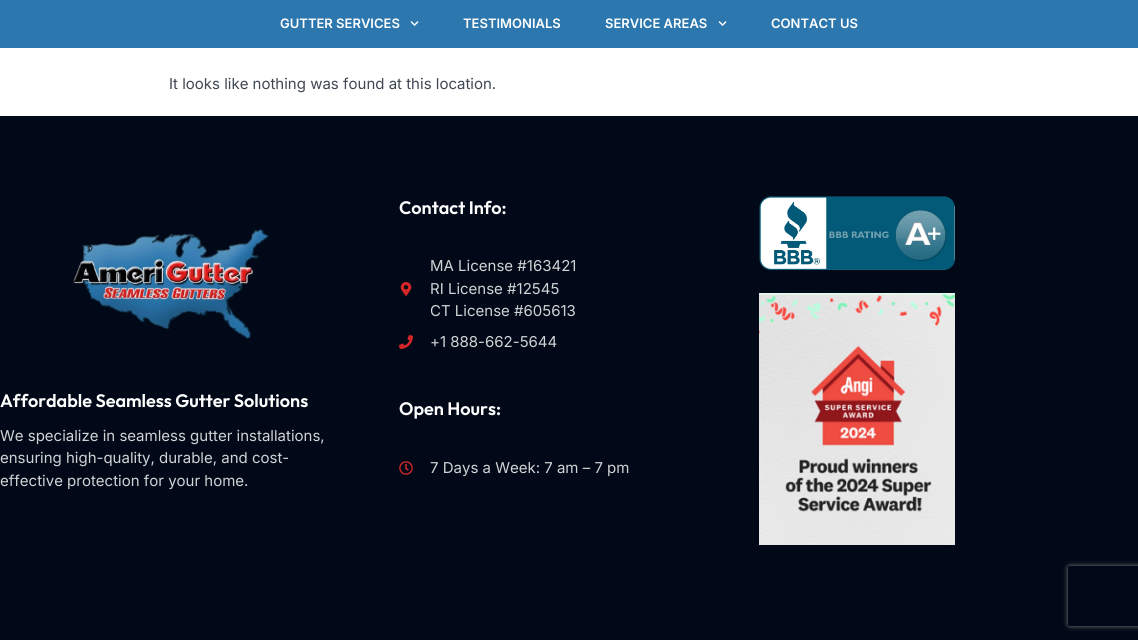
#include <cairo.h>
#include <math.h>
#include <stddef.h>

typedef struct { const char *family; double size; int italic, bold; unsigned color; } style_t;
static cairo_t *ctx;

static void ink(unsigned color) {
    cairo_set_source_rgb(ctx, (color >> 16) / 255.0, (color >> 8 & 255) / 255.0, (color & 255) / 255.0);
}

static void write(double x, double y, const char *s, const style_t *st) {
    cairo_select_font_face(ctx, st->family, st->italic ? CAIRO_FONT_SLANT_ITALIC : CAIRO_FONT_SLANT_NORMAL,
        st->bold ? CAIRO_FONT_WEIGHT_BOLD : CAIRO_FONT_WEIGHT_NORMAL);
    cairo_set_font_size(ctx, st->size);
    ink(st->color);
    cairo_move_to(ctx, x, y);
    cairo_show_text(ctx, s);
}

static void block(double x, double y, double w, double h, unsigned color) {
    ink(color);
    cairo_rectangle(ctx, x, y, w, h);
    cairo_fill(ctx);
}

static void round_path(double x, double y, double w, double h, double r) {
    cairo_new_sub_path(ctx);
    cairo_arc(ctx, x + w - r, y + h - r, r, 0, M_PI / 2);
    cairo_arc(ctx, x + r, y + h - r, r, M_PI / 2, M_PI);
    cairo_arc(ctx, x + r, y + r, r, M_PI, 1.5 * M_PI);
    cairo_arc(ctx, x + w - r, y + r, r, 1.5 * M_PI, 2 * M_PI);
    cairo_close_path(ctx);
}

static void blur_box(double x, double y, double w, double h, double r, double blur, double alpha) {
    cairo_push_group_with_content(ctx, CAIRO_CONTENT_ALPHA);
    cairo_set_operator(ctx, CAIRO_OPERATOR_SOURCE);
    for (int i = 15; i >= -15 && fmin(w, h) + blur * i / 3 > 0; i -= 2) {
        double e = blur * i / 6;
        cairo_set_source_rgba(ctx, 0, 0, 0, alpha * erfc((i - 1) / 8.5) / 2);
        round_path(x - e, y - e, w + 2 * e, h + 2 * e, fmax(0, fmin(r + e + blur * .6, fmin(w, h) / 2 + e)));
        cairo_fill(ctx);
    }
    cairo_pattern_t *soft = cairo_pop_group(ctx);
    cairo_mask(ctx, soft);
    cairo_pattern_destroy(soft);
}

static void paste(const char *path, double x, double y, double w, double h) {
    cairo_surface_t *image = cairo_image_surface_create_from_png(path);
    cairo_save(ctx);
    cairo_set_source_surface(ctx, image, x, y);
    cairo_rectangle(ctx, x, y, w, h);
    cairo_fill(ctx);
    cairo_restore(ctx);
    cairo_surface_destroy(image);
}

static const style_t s1 = {"Inter SemiBold", 13, 0, 0, 0xffffff};
static const style_t s2 = {"Inter", 15, 0, 0, 0x3e4752};
static const style_t s3 = {"Outfit SemiBold", 18, 0, 0, 0xffffff};
static const style_t s4 = {"Inter", 15, 0, 0, 0xd1d3d5};

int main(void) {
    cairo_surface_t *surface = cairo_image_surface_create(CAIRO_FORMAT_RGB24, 1138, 640);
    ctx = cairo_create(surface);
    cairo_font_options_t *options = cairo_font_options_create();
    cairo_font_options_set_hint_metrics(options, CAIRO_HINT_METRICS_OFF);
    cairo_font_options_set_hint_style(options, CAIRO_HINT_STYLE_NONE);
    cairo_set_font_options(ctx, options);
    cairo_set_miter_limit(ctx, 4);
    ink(0xffffff);
    cairo_paint(ctx);
    block(0, 0, 1138, 48, 0x2d77af);
    write(280, 28, "GUTTER SERVICES", &s1);
    paste("pic1.png", 410, 21, 9, 5);
    write(463, 28, "TESTIMONIALS", &s1);
    write(605, 28, "SERVICE AREAS", &s1);
    paste("pic1.png", 718, 21, 9, 5);
    write(771, 28, "CONTACT US", &s1);
    write(169, 89, "It looks like nothing was found at this location.", &s2);
    block(0, 116, 1138, 524, 0x010918);
    paste("pic2.png", 73, 229, 196, 110);
    write(0, 407, "Affordable Seamless Gutter Solutions", &s3);
    write(0, 441, "We specialize in seamless gutter installations,", &s4);
    write(0, 463, "ensuring high-quality, durable, and cost-", &s4);
    write(0, 486, "effective protection for your home.", &s4);
    write(399, 214, "Contact Info:", &s3);
    paste("pic3.png", 400, 282, 12, 14);
    write(430, 271, "MA License #163421", &s4);
    write(430, 294, "RI License #12545", &s4);
    write(430, 316, "CT License #605613", &s4);
    paste("pic4.png", 399, 335, 14, 14);
    write(430, 347, "+1 888-662-5644", &s4);
    write(399, 415, "Open Hours:", &s3);
    paste("pic5.png", 399, 461, 14, 14);
    write(430, 473, "7 Days a Week: 7 am – 7 pm", &s4);
    paste("pic6.png", 759, 196, 196, 74);
    paste("pic7.png", 759, 293, 196, 252);
    cairo_save(ctx);
    cairo_set_fill_rule(ctx, CAIRO_FILL_RULE_EVEN_ODD);
    cairo_new_path(ctx);
    cairo_move_to(ctx, 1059, 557);
    cairo_line_to(ctx, 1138, 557);
    cairo_line_to(ctx, 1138, 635);
    cairo_line_to(ctx, 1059, 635);
    cairo_close_path(ctx);
    cairo_move_to(ctx, 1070, 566);
    cairo_line_to(ctx, 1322, 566);
    cairo_curve_to(ctx, 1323, 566, 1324, 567, 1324, 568);
    cairo_line_to(ctx, 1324, 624);
    cairo_curve_to(ctx, 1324, 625, 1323, 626, 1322, 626);
    cairo_line_to(ctx, 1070, 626);
    cairo_curve_to(ctx, 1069, 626, 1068, 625, 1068, 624);
    cairo_line_to(ctx, 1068, 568);
    cairo_curve_to(ctx, 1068, 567, 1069, 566, 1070, 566);
    cairo_close_path(ctx);
    cairo_clip(ctx);
    ink(0x808080);
    blur_box(1068, 566, 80, 60, 2, 2.5, 1);
    cairo_restore(ctx);
    cairo_surface_write_to_png(surface, "screenshot.png");
    cairo_font_options_destroy(options);
    cairo_destroy(ctx);
    cairo_surface_destroy(surface);
    return 0;
}
